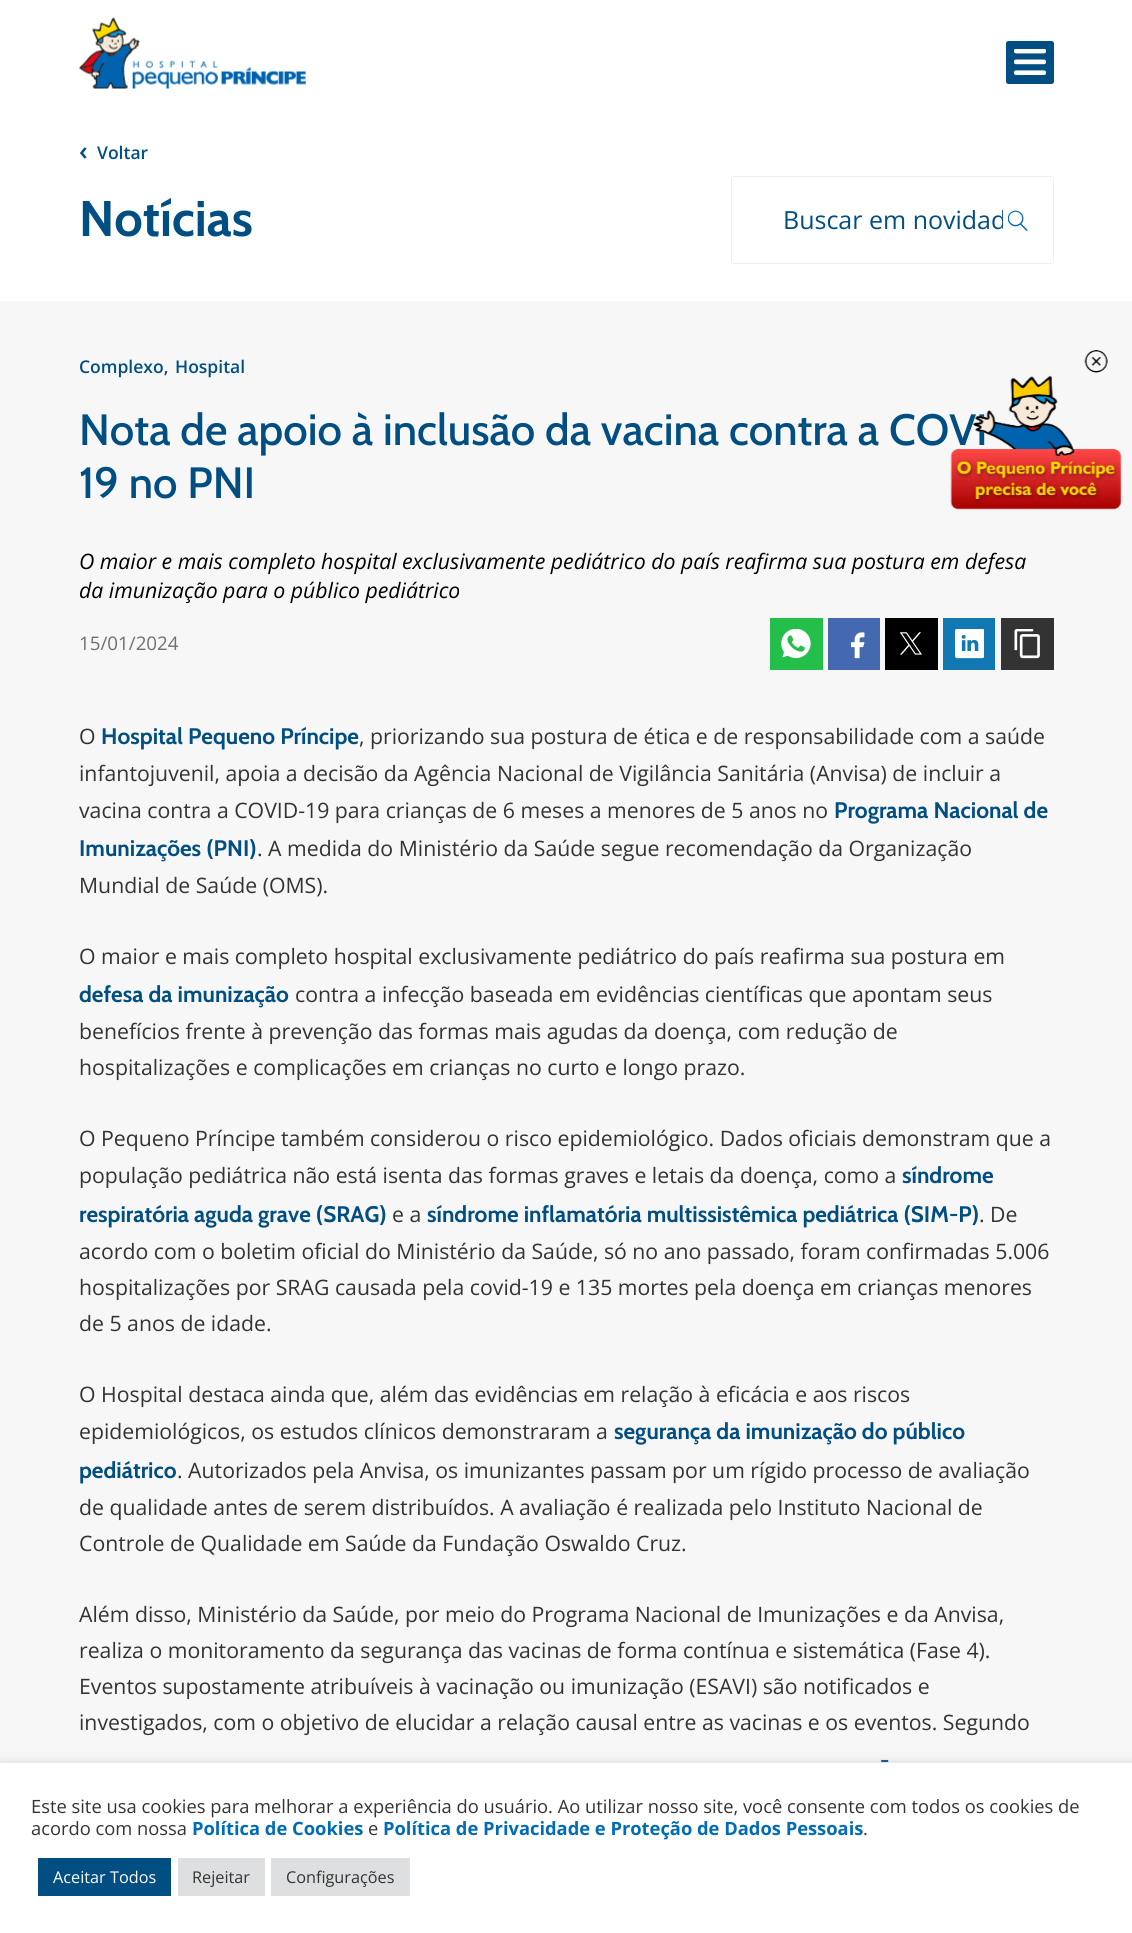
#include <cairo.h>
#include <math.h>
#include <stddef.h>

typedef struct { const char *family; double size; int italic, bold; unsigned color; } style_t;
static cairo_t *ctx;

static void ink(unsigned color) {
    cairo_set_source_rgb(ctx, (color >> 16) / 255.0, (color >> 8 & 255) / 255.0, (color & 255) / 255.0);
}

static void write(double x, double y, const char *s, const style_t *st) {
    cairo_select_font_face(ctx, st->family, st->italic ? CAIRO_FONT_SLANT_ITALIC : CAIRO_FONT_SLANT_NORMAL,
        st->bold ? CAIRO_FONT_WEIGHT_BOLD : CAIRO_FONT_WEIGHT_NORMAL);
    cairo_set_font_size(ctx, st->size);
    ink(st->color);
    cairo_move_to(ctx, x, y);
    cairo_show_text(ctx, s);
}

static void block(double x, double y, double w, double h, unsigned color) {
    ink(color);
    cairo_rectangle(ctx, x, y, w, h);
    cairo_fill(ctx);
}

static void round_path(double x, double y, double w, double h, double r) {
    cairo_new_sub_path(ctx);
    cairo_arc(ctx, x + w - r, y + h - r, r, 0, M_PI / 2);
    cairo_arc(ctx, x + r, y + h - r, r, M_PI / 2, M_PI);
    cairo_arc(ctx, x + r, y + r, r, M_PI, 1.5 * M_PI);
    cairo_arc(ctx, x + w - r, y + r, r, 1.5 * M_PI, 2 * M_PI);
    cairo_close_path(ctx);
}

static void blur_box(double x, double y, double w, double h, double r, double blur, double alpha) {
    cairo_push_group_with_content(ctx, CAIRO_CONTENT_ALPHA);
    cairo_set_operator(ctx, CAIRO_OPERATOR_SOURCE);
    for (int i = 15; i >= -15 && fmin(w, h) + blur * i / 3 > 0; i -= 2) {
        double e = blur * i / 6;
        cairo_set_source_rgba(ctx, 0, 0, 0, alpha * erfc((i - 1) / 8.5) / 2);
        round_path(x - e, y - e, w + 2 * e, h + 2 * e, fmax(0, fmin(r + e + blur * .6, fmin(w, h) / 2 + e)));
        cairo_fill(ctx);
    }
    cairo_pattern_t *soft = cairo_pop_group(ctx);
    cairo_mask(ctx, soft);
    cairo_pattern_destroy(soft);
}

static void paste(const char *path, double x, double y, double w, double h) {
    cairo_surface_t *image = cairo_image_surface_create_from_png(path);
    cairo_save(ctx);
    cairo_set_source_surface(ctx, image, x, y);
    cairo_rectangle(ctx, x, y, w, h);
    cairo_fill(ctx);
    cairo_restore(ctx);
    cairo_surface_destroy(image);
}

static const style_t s1 = {"Open Sans SemiBold", 26, 0, 0, 0x014e83};
static const style_t s2 = {"Open Sans SemiBold", 17.5, 0, 0, 0x014e83};
static const style_t s3 = {"Cabin", 50, 0, 1, 0x014e83};
static const style_t s4 = {"Open Sans", 25, 0, 0, 0x014e83};
static const style_t s5 = {"Cabin Medium", 43.75, 0, 0, 0x014e83};
static const style_t s6 = {"Open Sans", 21.25, 1, 0, 0x000000};
static const style_t s7 = {"Open Sans", 18.75, 0, 0, 0x707070};
static const style_t s8 = {"Open Sans", 21.25, 0, 0, 0x333333};
static const style_t s9 = {"Cabin", 22.5, 0, 1, 0x014e83};
static const style_t s10 = {"Open Sans", 18.33, 0, 0, 0x333333};
static const style_t s11 = {"Open Sans", 18.33, 0, 1, 0x006cb7};
static const style_t s12 = {"Open Sans", 16.25, 0, 0, 0xffffff};
static const style_t s13 = {"Open Sans", 16.25, 0, 0, 0x333333};

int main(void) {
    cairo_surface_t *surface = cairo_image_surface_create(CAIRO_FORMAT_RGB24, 1132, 1933);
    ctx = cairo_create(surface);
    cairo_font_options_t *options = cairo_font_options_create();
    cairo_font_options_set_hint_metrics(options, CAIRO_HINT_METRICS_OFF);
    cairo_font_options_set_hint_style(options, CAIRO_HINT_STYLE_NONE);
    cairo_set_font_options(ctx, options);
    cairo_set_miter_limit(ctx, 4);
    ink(0xf7f7f7);
    cairo_paint(ctx);
    block(0, 0, 1132, 301, 0xffffff);
    paste("pic1.png", 78, 17, 228, 72);
    ink(0x014e83);
    round_path(1006, 41, 48, 43, 2.5);
    cairo_fill(ctx);
    paste("pic2.png", 1014, 49, 32, 26);
    write(79, 160, "‹", &s1);
    write(97, 159, "Voltar", &s2);
    write(79, 236, "Notícias", &s3);
    paste("pic3.png", 1008, 210, 20, 21);
    round_path(731.5, 176.5, 322, 87, 2);
    ink(0xefefef);
    cairo_set_line_width(ctx, 1);
    cairo_stroke(ctx);
    cairo_save(ctx);
    cairo_rectangle(ctx, 783, 204, 220, 34);
    cairo_clip(ctx);
    write(783, 229, "Buscar em novidad", &s4);
    cairo_restore(ctx);
    write(79, 373, "Complexo,", &s2);
    write(175, 373, "Hospital", &s2);
    write(79, 445, "Nota de apoio à inclusão da vacina contra a COVI", &s5);
    write(79, 498, "19 no PNI", &s5);
    write(79, 569, "O maior e mais completo hospital exclusivamente pediátrico do país reafirma sua postura em defesa", &s6);
    write(79, 598, "da imunização para o público pediátrico", &s6);
    write(79, 650, "15/01/2024", &s7);
    block(770, 618, 53, 52, 0x23bf4a);
    paste("pic4.png", 781, 629, 30, 30);
    block(828, 618, 52, 52, 0x4469b0);
    paste("pic5.png", 851, 632, 14, 27);
    block(885, 618, 53, 52, 0x000000);
    paste("pic6.png", 899, 632, 23, 23);
    block(943, 618, 52, 52, 0x1178b3);
    paste("pic7.png", 955, 629, 29, 30);
    block(1001, 618, 53, 52, 0x333333);
    paste("pic8.png", 1014, 629, 26, 30);
    write(79, 744, "O", &s8);
    write(101, 744, "Hospital Pequeno Príncipe", &s9);
    write(359, 744, ", priorizando sua postura de ética e de responsabilidade com a saúde", &s8);
    write(79, 781, "infantojuvenil, apoia a decisão da Agência Nacional de Vigilância Sanitária (Anvisa) de incluir a", &s8);
    write(79, 818, "vacina contra a COVID-19 para crianças de 6 meses a menores de 5 anos no", &s8);
    write(834, 818, "Programa Nacional de", &s9);
    write(79, 856, "Imunizações (PNI)", &s9);
    write(257, 856, ". A medida do Ministério da Saúde segue recomendação da Organização", &s8);
    write(79, 893, "Mundial de Saúde (OMS).", &s8);
    write(79, 964, "O maior e mais completo hospital exclusivamente pediátrico do país reafirma sua postura em", &s8);
    write(79, 1002, "defesa da imunização", &s9);
    write(295, 1002, "contra a infecção baseada em evidências científicas que apontam seus", &s8);
    write(79, 1039, "benefícios frente à prevenção das formas mais agudas da doença, com redução de", &s8);
    write(79, 1075, "hospitalizações e complicações em crianças no curto e longo prazo.", &s8);
    write(79, 1146, "O Pequeno Príncipe também considerou o risco epidemiológico. Dados oficiais demonstram que a", &s8);
    write(79, 1183, "população pediátrica não está isenta das formas graves e letais da doença, como a", &s8);
    write(902, 1183, "síndrome", &s9);
    write(79, 1222, "respiratória aguda grave (SRAG)", &s9);
    write(392, 1222, "e a", &s8);
    write(427, 1222, "síndrome inflamatória multissistêmica pediátrica (SIM-P)", &s9);
    write(979, 1222, ". De", &s8);
    write(79, 1259, "acordo com o boletim oficial do Ministério da Saúde, só no ano passado, foram confirmadas 5.006", &s8);
    write(79, 1295, "hospitalizações por SRAG causada pela covid-19 e 135 mortes pela doença em crianças menores", &s8);
    write(79, 1331, "de 5 anos de idade.", &s8);
    write(79, 1402, "O Hospital destaca ainda que, além das evidências em relação à eficácia e aos riscos", &s8);
    write(79, 1439, "epidemiológicos, os estudos clínicos demonstraram a", &s8);
    write(614, 1439, "segurança da imunização do público", &s9);
    write(79, 1478, "pediátrico", &s9);
    write(177, 1478, ". Autorizados pela Anvisa, os imunizantes passam por um rígido processo de avaliação", &s8);
    write(79, 1515, "de qualidade antes de serem distribuídos. A avaliação é realizada pelo Instituto Nacional de", &s8);
    write(79, 1551, "Controle de Qualidade em Saúde da Fundação Oswaldo Cruz.", &s8);
    write(79, 1622, "Além disso, Ministério da Saúde, por meio do Programa Nacional de Imunizações e da Anvisa,", &s8);
    write(79, 1658, "realiza o monitoramento da segurança das vacinas de forma contínua e sistemática (Fase 4).", &s8);
    write(79, 1694, "Eventos supostamente atribuíveis à vacinação ou imunização (ESAVI) são notificados e", &s8);
    write(79, 1730, "investigados, com o objetivo de elucidar a relação causal entre as vacinas e os eventos. Segundo", &s8);
    write(880, 1768, "-", &s9);
    paste("pic9.png", 1084, 350, 24, 23);
    paste("pic10.png", 950, 375, 172, 135);
    ink(0xacabab);
    blur_box(0, 1761, 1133, 172, 0, 6, 0.3);
    block(0, 1763, 1132, 170, 0xffffff);
    write(31, 1813, "Este site usa cookies para melhorar a experiência do usuário. Ao utilizar nosso site, você consente com todos os cookies de", &s10);
    write(31, 1835, "acordo com nossa", &s10);
    write(192, 1835, "Política de Cookies", &s11);
    write(368, 1835, "e", &s10);
    write(383, 1835, "Política de Privacidade e Proteção de Dados Pessoais", &s11);
    write(863, 1835, ".", &s10);
    block(38, 1858, 133, 38, 0x014e83);
    write(53, 1883, "Aceitar Todos", &s12);
    block(178, 1858, 87, 38, 0xdedfe0);
    write(192, 1883, "Rejeitar", &s13);
    block(271, 1858, 139, 38, 0xdedfe0);
    write(286, 1883, "Configurações", &s13);
    cairo_surface_write_to_png(surface, "screenshot.png");
    cairo_font_options_destroy(options);
    cairo_destroy(ctx);
    cairo_surface_destroy(surface);
    return 0;
}
